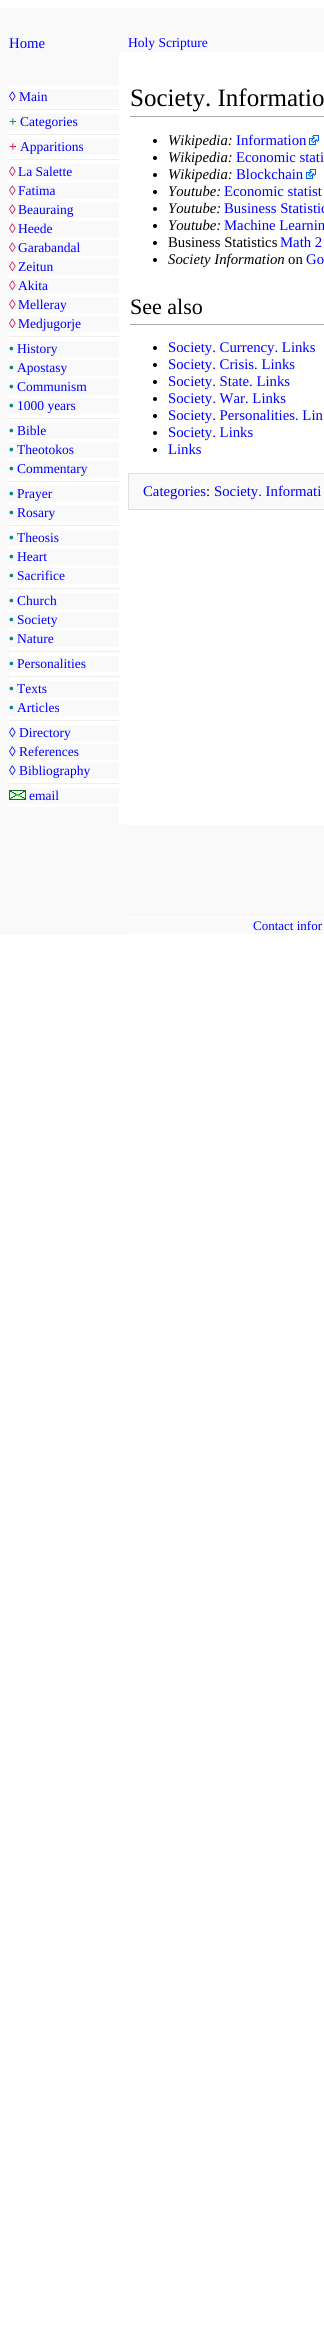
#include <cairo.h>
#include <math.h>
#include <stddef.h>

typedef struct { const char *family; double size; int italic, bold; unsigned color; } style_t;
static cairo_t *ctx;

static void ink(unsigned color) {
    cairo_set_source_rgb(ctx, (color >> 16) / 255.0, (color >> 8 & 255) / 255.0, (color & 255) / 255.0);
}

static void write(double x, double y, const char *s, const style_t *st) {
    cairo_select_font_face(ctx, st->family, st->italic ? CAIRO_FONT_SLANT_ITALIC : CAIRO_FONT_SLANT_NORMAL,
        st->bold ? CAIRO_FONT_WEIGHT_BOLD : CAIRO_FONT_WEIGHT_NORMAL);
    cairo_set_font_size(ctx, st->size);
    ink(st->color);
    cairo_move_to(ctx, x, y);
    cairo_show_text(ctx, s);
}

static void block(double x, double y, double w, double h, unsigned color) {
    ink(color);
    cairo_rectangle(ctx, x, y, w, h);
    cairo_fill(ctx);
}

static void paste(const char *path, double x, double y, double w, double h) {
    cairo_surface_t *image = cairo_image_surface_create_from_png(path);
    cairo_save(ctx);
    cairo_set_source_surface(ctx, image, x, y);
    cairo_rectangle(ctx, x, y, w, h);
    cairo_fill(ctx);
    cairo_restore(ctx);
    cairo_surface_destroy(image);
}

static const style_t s1 = {"Liberation Serif", 14.75, 0, 0, 0x0000ff};
static const style_t s2 = {"Liberation Serif", 13.5, 0, 0, 0x0000ff};
static const style_t s3 = {"Liberation Serif", 13.5, 0, 1, 0x028482};
static const style_t s4 = {"Liberation Serif", 13.5, 0, 1, 0xcc1559};
static const style_t s5 = {"Liberation Serif", 13.5, 0, 0, 0xcc1559};
static const style_t s6 = {"Liberation Serif", 25, 0, 0, 0x000000};
static const style_t s7 = {"Liberation Serif", 14.75, 1, 0, 0x000000};
static const style_t s8 = {"Liberation Serif", 14.75, 0, 0, 0x000000};
static const style_t s9 = {"Liberation Serif", 22, 0, 0, 0x000000};
static const style_t s10 = {"Liberation Serif", 13, 0, 0, 0x0000ff};

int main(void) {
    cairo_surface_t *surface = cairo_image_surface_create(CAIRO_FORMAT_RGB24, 324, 2336);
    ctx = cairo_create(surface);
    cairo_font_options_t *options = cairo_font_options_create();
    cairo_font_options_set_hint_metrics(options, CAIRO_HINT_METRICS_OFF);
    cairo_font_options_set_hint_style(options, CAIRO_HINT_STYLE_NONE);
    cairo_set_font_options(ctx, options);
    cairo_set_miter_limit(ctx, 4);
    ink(0xffffff);
    cairo_paint(ctx);
    block(0, 8, 324, 27, 0xf9f9f9);
    block(0, 35, 324, 17, 0xf9f9f9);
    write(9, 48, "Home", &s1);
    write(128, 47, "Holy Scripture", &s2);
    block(0, 52, 119, 17, 0xf9f9f9);
    block(0, 69, 9, 866, 0xf9f9f9);
    block(9, 69, 110, 735, 0xf9f9f9);
    block(9, 85, 110, 4, 0xffffff);
    write(9, 101, "◊ Main", &s2);
    block(9, 105, 110, 4, 0xffffff);
    block(9, 109, 110, 1, 0xeeeeee);
    block(9, 110, 110, 4, 0xffffff);
    write(9, 126, "+", &s3);
    write(20, 126, "Categories", &s2);
    block(9, 130, 110, 4, 0xffffff);
    block(9, 134, 110, 1, 0xeeeeee);
    block(9, 135, 110, 4, 0xffffff);
    write(9, 151, "+", &s4);
    write(20, 151, "Apparitions", &s2);
    block(9, 155, 110, 4, 0xffffff);
    block(9, 159, 110, 1, 0xeeeeee);
    block(9, 160, 110, 4, 0xffffff);
    write(9, 176, "◊", &s5);
    write(18, 176, "La Salette", &s2);
    block(9, 180, 110, 3, 0xffffff);
    write(9, 195, "◊", &s5);
    write(18, 195, "Fatima", &s2);
    block(9, 199, 110, 3, 0xffffff);
    write(9, 214, "◊", &s5);
    write(18, 214, "Beauraing", &s2);
    block(9, 218, 110, 3, 0xffffff);
    write(9, 233, "◊", &s5);
    write(18, 233, "Heede", &s2);
    block(9, 237, 110, 3, 0xffffff);
    write(9, 252, "◊", &s5);
    write(18, 252, "Garabandal", &s2);
    block(9, 256, 110, 3, 0xffffff);
    write(9, 271, "◊", &s5);
    write(18, 271, "Zeitun", &s2);
    block(9, 275, 110, 3, 0xffffff);
    write(9, 290, "◊", &s5);
    write(18, 290, "Akita", &s2);
    block(9, 294, 110, 3, 0xffffff);
    write(9, 309, "◊", &s5);
    write(18, 309, "Melleray", &s2);
    block(9, 313, 110, 3, 0xffffff);
    write(9, 328, "◊", &s5);
    write(18, 328, "Medjugorje", &s2);
    block(9, 332, 110, 4, 0xffffff);
    block(9, 336, 110, 1, 0xeeeeee);
    block(9, 337, 110, 4, 0xffffff);
    write(9, 353, "•", &s3);
    write(17, 353, "History", &s2);
    block(9, 357, 110, 3, 0xffffff);
    write(9, 372, "•", &s3);
    write(17, 372, "Apostasy", &s2);
    block(9, 376, 110, 3, 0xffffff);
    write(9, 391, "•", &s3);
    write(17, 391, "Communism", &s2);
    block(9, 395, 110, 3, 0xffffff);
    write(9, 410, "•", &s3);
    write(17, 410, "1000 years", &s2);
    block(9, 414, 110, 4, 0xffffff);
    block(9, 418, 110, 1, 0xeeeeee);
    block(9, 419, 110, 4, 0xffffff);
    write(9, 435, "•", &s3);
    write(17, 435, "Bible", &s2);
    block(9, 439, 110, 3, 0xffffff);
    write(9, 454, "•", &s3);
    write(17, 454, "Theotokos", &s2);
    block(9, 458, 110, 3, 0xffffff);
    write(9, 473, "•", &s3);
    write(17, 473, "Commentary", &s2);
    block(9, 477, 110, 4, 0xffffff);
    block(9, 481, 110, 1, 0xeeeeee);
    block(9, 482, 110, 4, 0xffffff);
    write(9, 498, "•", &s3);
    write(17, 498, "Prayer", &s2);
    block(9, 502, 110, 3, 0xffffff);
    write(9, 517, "•", &s3);
    write(17, 517, "Rosary", &s2);
    block(9, 521, 110, 4, 0xffffff);
    block(9, 525, 110, 1, 0xeeeeee);
    block(9, 526, 110, 4, 0xffffff);
    write(9, 542, "•", &s3);
    write(17, 542, "Theosis", &s2);
    block(9, 546, 110, 3, 0xffffff);
    write(9, 561, "•", &s3);
    write(17, 561, "Heart", &s2);
    block(9, 565, 110, 3, 0xffffff);
    write(9, 580, "•", &s3);
    write(17, 580, "Sacrifice", &s2);
    block(9, 584, 110, 4, 0xffffff);
    block(9, 588, 110, 1, 0xeeeeee);
    block(9, 589, 110, 4, 0xffffff);
    write(9, 605, "•", &s3);
    write(17, 605, "Church", &s2);
    block(9, 609, 110, 3, 0xffffff);
    write(9, 624, "•", &s3);
    write(17, 624, "Society", &s2);
    block(9, 628, 110, 3, 0xffffff);
    write(9, 643, "•", &s3);
    write(17, 643, "Nature", &s2);
    block(9, 647, 110, 4, 0xffffff);
    block(9, 651, 110, 1, 0xeeeeee);
    block(9, 652, 110, 4, 0xffffff);
    write(9, 668, "•", &s3);
    write(17, 668, "Personalities", &s2);
    block(9, 672, 110, 4, 0xffffff);
    block(9, 676, 110, 1, 0xeeeeee);
    block(9, 677, 110, 4, 0xffffff);
    write(9, 693, "•", &s3);
    write(17, 693, "Texts", &s2);
    block(9, 697, 110, 3, 0xffffff);
    write(9, 712, "•", &s3);
    write(17, 712, "Articles", &s2);
    block(9, 716, 110, 4, 0xffffff);
    block(9, 720, 110, 1, 0xeeeeee);
    block(9, 721, 110, 4, 0xffffff);
    write(9, 737, "◊ Directory", &s2);
    block(9, 741, 110, 3, 0xffffff);
    write(9, 756, "◊ References", &s2);
    block(9, 760, 110, 3, 0xffffff);
    write(9, 775, "◊ Bibliography", &s2);
    block(9, 779, 110, 4, 0xffffff);
    block(9, 783, 110, 1, 0xeeeeee);
    block(9, 784, 110, 4, 0xffffff);
    paste("pic1.png", 9, 790, 17, 10);
    write(29, 800, "email", &s2);
    block(130, 116, 194, 1, 0xaaaaaa);
    write(130, 106, "Society. Informatio", &s6);
    cairo_new_path(ctx);
    cairo_arc(ctx, 155, 141, 2, 0, 2 * M_PI);
    cairo_fill(ctx);
    write(168, 145, "Wikipedia:", &s7);
    write(236, 145, "Information", &s1);
    paste("pic2.png", 309, 135, 10, 10);
    ink(0x000000);
    cairo_arc(ctx, 155, 158, 2, 0, 2 * M_PI);
    cairo_fill(ctx);
    write(168, 162, "Wikipedia:", &s7);
    write(236, 162, "Economic stati", &s1);
    ink(0x000000);
    cairo_new_path(ctx);
    cairo_arc(ctx, 155, 175, 2, 0, 2 * M_PI);
    cairo_fill(ctx);
    write(168, 179, "Wikipedia:", &s7);
    write(236, 179, "Blockchain", &s1);
    paste("pic2.png", 306, 169, 10, 10);
    ink(0x000000);
    cairo_arc(ctx, 155, 192, 2, 0, 2 * M_PI);
    cairo_fill(ctx);
    write(168, 196, "Youtube:", &s7);
    write(224, 196, "Economic statist", &s1);
    ink(0x000000);
    cairo_new_path(ctx);
    cairo_arc(ctx, 155, 209, 2, 0, 2 * M_PI);
    cairo_fill(ctx);
    write(168, 213, "Youtube:", &s7);
    write(224, 213, "Business Statistic", &s1);
    ink(0x000000);
    cairo_new_path(ctx);
    cairo_arc(ctx, 155, 226, 2, 0, 2 * M_PI);
    cairo_fill(ctx);
    write(168, 230, "Youtube:", &s7);
    write(224, 230, "Machine Learnin", &s1);
    ink(0x000000);
    cairo_new_path(ctx);
    cairo_arc(ctx, 155, 243, 2, 0, 2 * M_PI);
    cairo_fill(ctx);
    write(168, 247, "Business Statistics", &s8);
    write(280, 247, "Math 2", &s1);
    ink(0x000000);
    cairo_new_path(ctx);
    cairo_arc(ctx, 155, 260, 2, 0, 2 * M_PI);
    cairo_fill(ctx);
    write(168, 264, "Society Information", &s7);
    write(288, 264, "on", &s8);
    write(306, 264, "Go", &s1);
    block(130, 324, 194, 1, 0xaaaaaa);
    write(130, 314, "See also", &s9);
    cairo_new_path(ctx);
    cairo_arc(ctx, 155, 348, 2, 0, 2 * M_PI);
    cairo_fill(ctx);
    write(168, 352, "Society. Currency. Links", &s1);
    ink(0x000000);
    cairo_new_path(ctx);
    cairo_arc(ctx, 155, 365, 2, 0, 2 * M_PI);
    cairo_fill(ctx);
    write(168, 369, "Society. Crisis. Links", &s1);
    ink(0x000000);
    cairo_new_path(ctx);
    cairo_arc(ctx, 155, 382, 2, 0, 2 * M_PI);
    cairo_fill(ctx);
    write(168, 386, "Society. State. Links", &s1);
    ink(0x000000);
    cairo_new_path(ctx);
    cairo_arc(ctx, 155, 399, 2, 0, 2 * M_PI);
    cairo_fill(ctx);
    write(168, 403, "Society. War. Links", &s1);
    ink(0x000000);
    cairo_new_path(ctx);
    cairo_arc(ctx, 155, 416, 2, 0, 2 * M_PI);
    cairo_fill(ctx);
    write(168, 420, "Society. Personalities. Lin", &s1);
    ink(0x000000);
    cairo_new_path(ctx);
    cairo_arc(ctx, 155, 433, 2, 0, 2 * M_PI);
    cairo_fill(ctx);
    write(168, 437, "Society. Links", &s1);
    ink(0x000000);
    cairo_new_path(ctx);
    cairo_arc(ctx, 155, 450, 2, 0, 2 * M_PI);
    cairo_fill(ctx);
    write(168, 454, "Links", &s1);
    ink(0xf9f9f9);
    cairo_rectangle(ctx, 128.5, 473.5, 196, 36);
    cairo_fill_preserve(ctx);
    ink(0xe0e0e0);
    cairo_set_line_width(ctx, 1);
    cairo_stroke(ctx);
    write(143, 496, "Categories", &s1);
    write(206, 496, ":", &s8);
    write(214, 496, "Society. Informati", &s1);
    block(9, 807, 110, 128, 0xf9f9f9);
    block(119, 824, 9, 111, 0xf9f9f9);
    block(128, 825, 196, 109, 0xf9f9f9);
    block(128, 917, 196, 1, 0xffffff);
    write(253, 930, "Contact infor", &s10);
    cairo_surface_write_to_png(surface, "screenshot.png");
    cairo_font_options_destroy(options);
    cairo_destroy(ctx);
    cairo_surface_destroy(surface);
    return 0;
}
